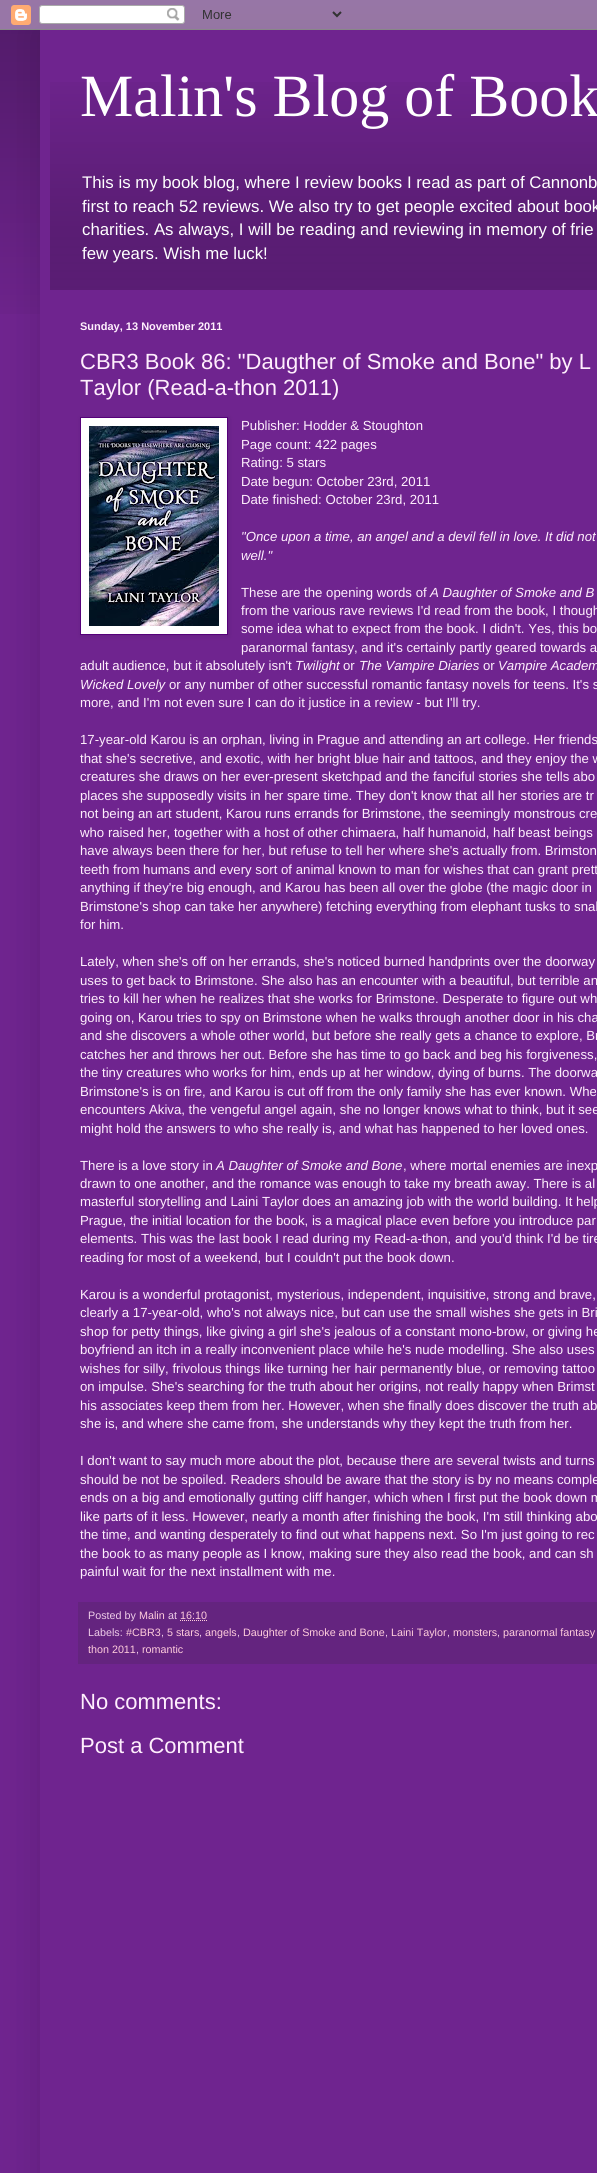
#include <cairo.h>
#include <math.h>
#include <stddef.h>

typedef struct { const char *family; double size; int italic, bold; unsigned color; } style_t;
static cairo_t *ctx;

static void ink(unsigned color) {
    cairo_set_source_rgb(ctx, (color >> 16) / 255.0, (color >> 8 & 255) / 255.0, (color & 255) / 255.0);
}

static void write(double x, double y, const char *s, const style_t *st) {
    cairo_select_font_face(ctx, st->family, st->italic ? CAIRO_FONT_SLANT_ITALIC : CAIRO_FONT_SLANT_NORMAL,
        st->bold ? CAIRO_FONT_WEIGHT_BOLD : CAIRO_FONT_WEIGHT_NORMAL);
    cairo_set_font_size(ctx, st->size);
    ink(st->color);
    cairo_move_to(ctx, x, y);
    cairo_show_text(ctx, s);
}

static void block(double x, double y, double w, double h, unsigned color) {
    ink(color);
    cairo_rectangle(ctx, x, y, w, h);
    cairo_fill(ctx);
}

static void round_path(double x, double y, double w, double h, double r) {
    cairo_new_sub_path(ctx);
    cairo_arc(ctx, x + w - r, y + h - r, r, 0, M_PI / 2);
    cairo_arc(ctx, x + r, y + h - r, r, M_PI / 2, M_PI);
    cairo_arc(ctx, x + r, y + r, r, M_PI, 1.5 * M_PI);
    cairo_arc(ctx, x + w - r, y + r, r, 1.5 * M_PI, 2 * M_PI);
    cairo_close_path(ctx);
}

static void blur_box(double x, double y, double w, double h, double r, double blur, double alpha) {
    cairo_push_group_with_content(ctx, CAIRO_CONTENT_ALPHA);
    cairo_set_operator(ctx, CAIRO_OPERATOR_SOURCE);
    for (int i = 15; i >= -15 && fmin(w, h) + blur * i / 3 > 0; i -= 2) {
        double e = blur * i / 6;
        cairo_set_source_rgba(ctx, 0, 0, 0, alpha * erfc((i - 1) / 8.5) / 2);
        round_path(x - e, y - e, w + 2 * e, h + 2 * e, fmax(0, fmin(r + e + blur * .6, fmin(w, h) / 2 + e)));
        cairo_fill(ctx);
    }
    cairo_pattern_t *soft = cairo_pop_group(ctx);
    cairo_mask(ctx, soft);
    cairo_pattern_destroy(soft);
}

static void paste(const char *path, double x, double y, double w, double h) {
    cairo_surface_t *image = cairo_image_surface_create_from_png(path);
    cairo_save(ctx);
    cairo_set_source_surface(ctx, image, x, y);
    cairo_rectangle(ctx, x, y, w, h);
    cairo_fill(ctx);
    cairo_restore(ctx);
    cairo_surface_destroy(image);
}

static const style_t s1 = {"Liberation Serif", 60, 0, 0, 0xffffff};
static const style_t s2 = {"Liberation Sans", 16.8, 0, 0, 0xffffff};
static const style_t s3 = {"Liberation Sans", 11, 0, 1, 0xffeffd};
static const style_t s4 = {"Liberation Sans", 22, 0, 0, 0xffeffd};
static const style_t s5 = {"Liberation Sans", 13.2, 0, 0, 0xffeffd};
static const style_t s6 = {"Liberation Sans", 13.2, 1, 0, 0xffeffd};
static const style_t s7 = {"Liberation Sans", 10.75, 0, 0, 0xeecde8};
static const style_t s8 = {"Liberation Sans", 10.75, 0, 0, 0xffcddc};

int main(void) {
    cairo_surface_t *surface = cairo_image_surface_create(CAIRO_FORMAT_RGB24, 597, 2173);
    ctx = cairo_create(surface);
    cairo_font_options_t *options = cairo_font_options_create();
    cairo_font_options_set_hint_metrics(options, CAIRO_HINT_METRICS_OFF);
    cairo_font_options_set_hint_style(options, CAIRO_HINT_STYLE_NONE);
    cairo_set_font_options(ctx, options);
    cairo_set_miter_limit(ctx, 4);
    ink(0x6f248f);
    cairo_paint(ctx);
    paste("pic1.png", 0, 0, 597, 314);
    ink(0x000000);
    blur_box(40, 30, 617, 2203, 0, 20, 0.15);
    paste("pic2.png", 0, 0, 597, 30);
    block(40, 30, 557, 2143, 0x6f248f);
    paste("pic3.png", 50, 82, 547, 208);
    write(80, 116, "Malin's Blog of Book", &s1);
    write(82, 188, "This is my book blog, where I review books I read as part of Cannonb", &s2);
    write(82, 212, "first to reach 52 reviews. We also try to get people excited about book", &s2);
    write(82, 235, "charities. As always, I will be reading and reviewing in memory of frie", &s2);
    write(82, 259, "few years. Wish me luck!", &s2);
    write(80, 330, "Sunday, 13 November 2011", &s3);
    write(80, 369, "CBR3 Book 86: \"Daugther of Smoke and Bone\" by L", &s4);
    write(80, 395, "Taylor (Read-a-thon 2011)", &s4);
    ink(0x000000);
    blur_box(81, 418, 148, 218, 0, 2.5, 0.1);
    ink(0xffffff);
    cairo_rectangle(ctx, 80.5, 417.5, 147, 217);
    cairo_fill_preserve(ctx);
    ink(0x56007a);
    cairo_set_line_width(ctx, 1);
    cairo_stroke(ctx);
    paste("pic4.png", 89, 426, 130, 200);
    write(241, 430, "Publisher: Hodder & Stoughton", &s5);
    write(241, 449, "Page count: 422 pages", &s5);
    write(241, 467, "Rating: 5 stars", &s5);
    write(241, 486, "Date begun: October 23rd, 2011", &s5);
    write(241, 504, "Date finished: October 23rd, 2011", &s5);
    write(241, 541, "\"Once upon a time, an angel and a devil fell in love. It did not", &s6);
    write(241, 560, "well.\"", &s6);
    write(241, 597, "These are the opening words of", &s5);
    write(430, 597, "A Daughter of Smoke and B", &s6);
    write(241, 615, "from the various rave reviews I'd read from the book, I though", &s5);
    write(241, 633, "some idea what to expect from the book. I didn't. Yes, this bo", &s5);
    write(241, 652, "paranormal fantasy, and it's certainly partly geared towards a", &s5);
    write(80, 670, "adult audience, but it absolutely isn't", &s5);
    write(295, 670, "Twilight", &s6);
    write(343, 670, "or", &s5);
    write(359, 670, "The Vampire Diaries", &s6);
    write(483, 670, "or", &s5);
    write(498, 670, "Vampire Academ", &s6);
    write(80, 689, "Wicked Lovely", &s6);
    write(169, 689, "or any number of other successful romantic fantasy novels for teens. It's s", &s5);
    write(80, 707, "more, and I'm not even sure I can do it justice in a review - but I'll try.", &s5);
    write(80, 744, "17-year-old Karou is an orphan, living in Prague and attending an art college. Her friends", &s5);
    write(80, 763, "that she's secretive, and exotic, with her bright blue hair and tattoos, and they enjoy the w", &s5);
    write(80, 781, "creatures she draws on her ever-present sketchpad and the fanciful stories she tells abo", &s5);
    write(80, 800, "places she supposedly visits in her spare time. They don't know that all her stories are tr", &s5);
    write(80, 818, "not being an art student, Karou runs errands for Brimstone, the seemingly monstrous cre", &s5);
    write(80, 837, "who raised her, together with a host of other chimaera, half humanoid, half beast beings", &s5);
    write(80, 855, "have always been there for her, but refuse to tell her where she's actually from. Brimston", &s5);
    write(80, 874, "teeth from humans and every sort of animal known to man for wishes that can grant prett", &s5);
    write(80, 892, "anything if they're big enough, and Karou has been all over the globe (the magic door in", &s5);
    write(80, 911, "Brimstone's shop can take her anywhere) fetching everything from elephant tusks to snak", &s5);
    write(80, 929, "for him.", &s5);
    write(80, 966, "Lately, when she's off on her errands, she's noticed burned handprints over the doorway", &s5);
    write(80, 985, "uses to get back to Brimstone. She also has an encounter with a beautiful, but terrible an", &s5);
    write(80, 1003, "tries to kill her when he realizes that she works for Brimstone. Desperate to figure out wh", &s5);
    write(80, 1022, "going on, Karou tries to spy on Brimstone when he walks through another door in his cha", &s5);
    write(80, 1040, "and she discovers a whole other world, but before she really gets a chance to explore, Br", &s5);
    write(80, 1059, "catches her and throws her out. Before she has time to go back and beg his forgiveness,", &s5);
    write(80, 1077, "the tiny creatures who works for him, ends up at her window, dying of burns. The doorwa", &s5);
    write(80, 1096, "Brimstone's is on fire, and Karou is cut off from the only family she has ever known. Whe", &s5);
    write(80, 1114, "encounters Akiva, the vengeful angel again, she no longer knows what to think, but it see", &s5);
    write(80, 1133, "might hold the answers to who she really is, and what has happened to her loved ones.", &s5);
    write(80, 1170, "There is a love story in", &s5);
    write(216, 1170, "A Daughter of Smoke and Bone", &s6);
    write(403, 1170, ", where mortal enemies are inexp", &s5);
    write(80, 1188, "drawn to one another, and the romance was enough to take my breath away. There is al", &s5);
    write(80, 1206, "masterful storytelling and Laini Taylor does an amazing job with the world building. It help", &s5);
    write(80, 1225, "Prague, the initial location for the book, is a magical place even before you introduce par", &s5);
    write(80, 1243, "elements. This was the last book I read during my Read-a-thon, and you'd think I'd be tire", &s5);
    write(80, 1262, "reading for most of a weekend, but I couldn't put the book down.", &s5);
    write(80, 1299, "Karou is a wonderful protagonist, mysterious, independent, inquisitive, strong and brave,", &s5);
    write(80, 1317, "clearly a 17-year-old, who's not always nice, but can use the small wishes she gets in Bri", &s5);
    write(80, 1336, "shop for petty things, like giving a girl she's jealous of a constant mono-brow, or giving he", &s5);
    write(80, 1354, "boyfriend an itch in a really inconvenient place while he's nude modelling. She also uses", &s5);
    write(80, 1373, "wishes for silly, frivolous things like turning her hair permanently blue, or removing tattoo", &s5);
    write(80, 1391, "on impulse. She's searching for the truth about her origins, not really happy when Brimst", &s5);
    write(80, 1410, "his associates keep them from her. However, when she finally does discover the truth ab", &s5);
    write(80, 1428, "she is, and where she came from, she understands why they kept the truth from her.", &s5);
    write(80, 1465, "I don't want to say much more about the plot, because there are several twists and turns", &s5);
    write(80, 1484, "should be not be spoiled. Readers should be aware that the story is by no means comple", &s5);
    write(80, 1502, "ends on a big and emotionally gutting cliff hanger, which when I first put the book down m", &s5);
    write(80, 1521, "like parts of it less. However, nearly a month after finishing the book, I'm still thinking abo", &s5);
    write(80, 1539, "the time, and wanting desperately to find out what happens next. So I'm just going to rec", &s5);
    write(80, 1558, "the book to as many people as I know, making sure they also read the book, and can sh", &s5);
    write(80, 1576, "painful wait for the next installment with me.", &s5);
    block(78, 1602, 519, 62, 0x64247f);
    write(88, 1619, "Posted by", &s7);
    write(139, 1619, "Malin", &s8);
    write(168, 1619, "at", &s7);
    write(180, 1619, "16:10", &s8);
    cairo_new_path(ctx);
    cairo_move_to(ctx, 180, 1620.5);
    cairo_line_to(ctx, 207, 1620.5);
    cairo_set_dash(ctx, (double[]){1, 1}, 2, 0);
    cairo_stroke(ctx);
    write(88, 1636, "Labels:", &s7);
    write(126, 1636, "#CBR3", &s8);
    write(161, 1636, ",", &s7);
    write(167, 1636, "5 stars", &s8);
    write(199, 1636, ",", &s7);
    write(205, 1636, "angels", &s8);
    write(237, 1636, ",", &s7);
    write(243, 1636, "Daughter of Smoke and Bone", &s8);
    write(385, 1636, ",", &s7);
    write(391, 1636, "Laini Taylor", &s8);
    write(447, 1636, ",", &s7);
    write(453, 1636, "monsters", &s8);
    write(497, 1636, ",", &s7);
    write(503, 1636, "paranormal fantasy", &s8);
    write(88, 1653, "thon 2011", &s8);
    write(136, 1653, ",", &s7);
    write(142, 1653, "romantic", &s8);
    write(80, 1709, "No comments:", &s4);
    write(80, 1753, "Post a Comment", &s4);
    cairo_surface_write_to_png(surface, "screenshot.png");
    cairo_font_options_destroy(options);
    cairo_destroy(ctx);
    cairo_surface_destroy(surface);
    return 0;
}
